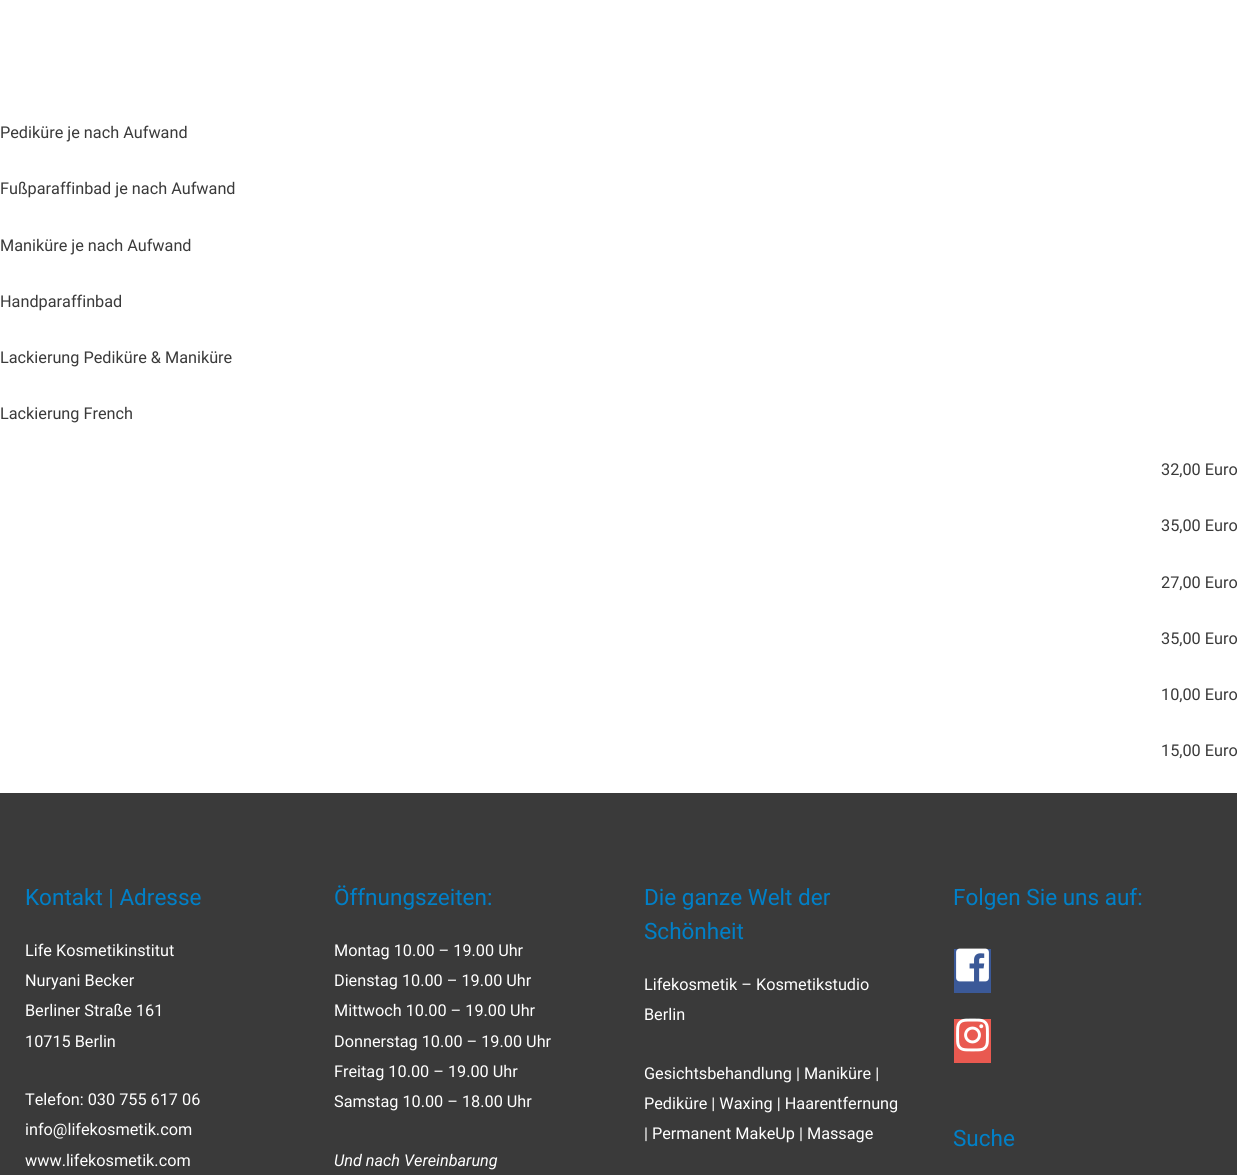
#include <cairo.h>
#include <math.h>
#include <stddef.h>

typedef struct { const char *family; double size; int italic, bold; unsigned color; } style_t;
static cairo_t *ctx;

static void ink(unsigned color) {
    cairo_set_source_rgb(ctx, (color >> 16) / 255.0, (color >> 8 & 255) / 255.0, (color & 255) / 255.0);
}

static void write(double x, double y, const char *s, const style_t *st) {
    cairo_select_font_face(ctx, st->family, st->italic ? CAIRO_FONT_SLANT_ITALIC : CAIRO_FONT_SLANT_NORMAL,
        st->bold ? CAIRO_FONT_WEIGHT_BOLD : CAIRO_FONT_WEIGHT_NORMAL);
    cairo_set_font_size(ctx, st->size);
    ink(st->color);
    cairo_move_to(ctx, x, y);
    cairo_show_text(ctx, s);
}

static void block(double x, double y, double w, double h, unsigned color) {
    ink(color);
    cairo_rectangle(ctx, x, y, w, h);
    cairo_fill(ctx);
}

static void paste(const char *path, double x, double y, double w, double h) {
    cairo_surface_t *image = cairo_image_surface_create_from_png(path);
    cairo_save(ctx);
    cairo_set_source_surface(ctx, image, x, y);
    cairo_rectangle(ctx, x, y, w, h);
    cairo_fill(ctx);
    cairo_restore(ctx);
    cairo_surface_destroy(image);
}

static const style_t s1 = {"Roboto", 16.25, 0, 0, 0x3a3a3a};
static const style_t s2 = {"Roboto", 22.5, 0, 0, 0x0080c8};
static const style_t s3 = {"Roboto", 16.25, 0, 0, 0xffffff};
static const style_t s4 = {"Roboto", 16.25, 1, 0, 0xffffff};

int main(void) {
    cairo_surface_t *surface = cairo_image_surface_create(CAIRO_FORMAT_RGB24, 1237, 1175);
    ctx = cairo_create(surface);
    cairo_font_options_t *options = cairo_font_options_create();
    cairo_font_options_set_hint_metrics(options, CAIRO_HINT_METRICS_OFF);
    cairo_font_options_set_hint_style(options, CAIRO_HINT_STYLE_NONE);
    cairo_set_font_options(ctx, options);
    cairo_set_miter_limit(ctx, 4);
    ink(0xffffff);
    cairo_paint(ctx);
    write(0, 138, "Pediküre je nach Aufwand", &s1);
    write(0, 194, "Fußparaffinbad je nach Aufwand", &s1);
    write(0, 251, "Maniküre je nach Aufwand", &s1);
    write(0, 307, "Handparaffinbad", &s1);
    write(0, 363, "Lackierung Pediküre & Maniküre", &s1);
    write(0, 419, "Lackierung French", &s1);
    write(1161, 475, "32,00 Euro", &s1);
    write(1161, 531, "35,00 Euro", &s1);
    write(1161, 588, "27,00 Euro", &s1);
    write(1161, 644, "35,00 Euro", &s1);
    write(1161, 700, "10,00 Euro", &s1);
    write(1161, 756, "15,00 Euro", &s1);
    block(0, 793, 1237, 382, 0x3a3a3a);
    write(25, 905, "Kontakt | Adresse", &s2);
    write(25, 956, "Life Kosmetikinstitut", &s3);
    write(25, 986, "Nuryani Becker", &s3);
    write(25, 1016, "Berliner Straße 161", &s3);
    write(25, 1047, "10715 Berlin", &s3);
    write(25, 1105, "Telefon: 030 755 617 06", &s3);
    write(25, 1135, "info@lifekosmetik.com", &s3);
    write(25, 1166, "www.lifekosmetik.com", &s3);
    write(334, 905, "Öffnungszeiten:", &s2);
    write(334, 956, "Montag 10.00 – 19.00 Uhr", &s3);
    write(334, 986, "Dienstag 10.00 – 19.00 Uhr", &s3);
    write(334, 1016, "Mittwoch 10.00 – 19.00 Uhr", &s3);
    write(334, 1047, "Donnerstag 10.00 – 19.00 Uhr", &s3);
    write(334, 1077, "Freitag 10.00 – 19.00 Uhr", &s3);
    write(334, 1107, "Samstag 10.00 – 18.00 Uhr", &s3);
    write(334, 1166, "Und nach Vereinbarung", &s4);
    write(644, 905, "Die ganze Welt der", &s2);
    write(644, 939, "Schönheit", &s2);
    write(644, 990, "Lifekosmetik – Kosmetikstudio", &s3);
    write(644, 1020, "Berlin", &s3);
    write(644, 1079, "Gesichtsbehandlung | Maniküre |", &s3);
    write(644, 1109, "Pediküre | Waxing | Haarentfernung", &s3);
    write(644, 1139, "| Permanent MakeUp | Massage", &s3);
    write(953, 905, "Folgen Sie uns auf:", &s2);
    block(954, 949, 37, 44, 0x3b5998);
    paste("pic1.png", 956, 948, 33, 34);
    block(954, 1019, 37, 44, 0xe95950);
    paste("pic2.png", 956, 1018, 33, 34);
    write(953, 1146, "Suche", &s2);
    cairo_surface_write_to_png(surface, "screenshot.png");
    cairo_font_options_destroy(options);
    cairo_destroy(ctx);
    cairo_surface_destroy(surface);
    return 0;
}
